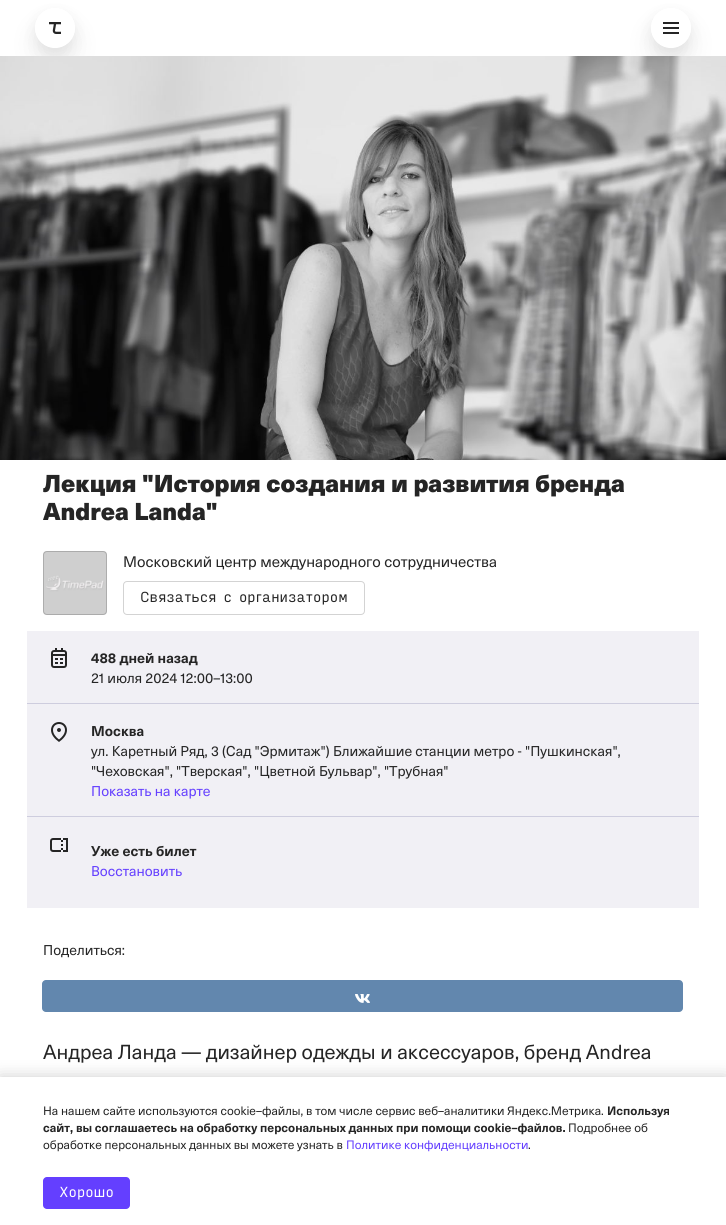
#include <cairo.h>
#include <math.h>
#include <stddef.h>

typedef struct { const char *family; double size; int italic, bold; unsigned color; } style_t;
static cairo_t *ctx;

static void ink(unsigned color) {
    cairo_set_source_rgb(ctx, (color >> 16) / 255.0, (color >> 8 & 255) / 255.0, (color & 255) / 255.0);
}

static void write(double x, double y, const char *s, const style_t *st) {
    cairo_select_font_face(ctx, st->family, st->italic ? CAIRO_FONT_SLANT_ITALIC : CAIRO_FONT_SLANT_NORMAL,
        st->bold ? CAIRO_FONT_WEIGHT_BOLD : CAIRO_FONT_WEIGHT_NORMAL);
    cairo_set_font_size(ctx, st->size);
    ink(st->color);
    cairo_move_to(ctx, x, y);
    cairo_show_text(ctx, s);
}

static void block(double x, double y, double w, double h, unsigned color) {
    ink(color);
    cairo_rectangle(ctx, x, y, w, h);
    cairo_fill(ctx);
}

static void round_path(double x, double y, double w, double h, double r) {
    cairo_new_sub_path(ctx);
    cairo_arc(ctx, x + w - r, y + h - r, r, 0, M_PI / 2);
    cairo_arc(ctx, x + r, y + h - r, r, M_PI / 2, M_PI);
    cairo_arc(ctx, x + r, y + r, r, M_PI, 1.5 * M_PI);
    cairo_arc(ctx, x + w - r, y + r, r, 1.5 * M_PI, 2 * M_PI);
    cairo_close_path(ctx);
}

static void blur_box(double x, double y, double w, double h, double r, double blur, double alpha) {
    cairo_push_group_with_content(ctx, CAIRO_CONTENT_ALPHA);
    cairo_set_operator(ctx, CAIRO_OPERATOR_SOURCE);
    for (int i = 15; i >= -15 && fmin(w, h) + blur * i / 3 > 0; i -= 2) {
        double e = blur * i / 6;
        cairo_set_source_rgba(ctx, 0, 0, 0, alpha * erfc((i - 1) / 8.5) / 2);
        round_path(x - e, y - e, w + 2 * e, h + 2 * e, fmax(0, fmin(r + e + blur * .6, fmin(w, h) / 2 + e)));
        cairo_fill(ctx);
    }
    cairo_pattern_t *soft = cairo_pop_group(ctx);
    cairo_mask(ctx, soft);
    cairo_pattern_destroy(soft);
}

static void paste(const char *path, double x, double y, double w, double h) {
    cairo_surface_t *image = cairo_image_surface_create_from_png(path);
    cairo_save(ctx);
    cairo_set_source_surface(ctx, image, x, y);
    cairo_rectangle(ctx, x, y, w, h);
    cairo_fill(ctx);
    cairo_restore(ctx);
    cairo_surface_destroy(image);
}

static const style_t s1 = {"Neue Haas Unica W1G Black", 24, 0, 0, 0x252525};
static const style_t s2 = {"Neue Haas Unica W1G", 15, 0, 0, 0x252525};
static const style_t s3 = {"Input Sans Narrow", 14, 0, 0, 0x252525};
static const style_t s4 = {"Neue Haas Unica W1G", 14, 0, 1, 0x252525};
static const style_t s5 = {"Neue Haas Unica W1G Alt", 14, 0, 0, 0x252525};
static const style_t s6 = {"Neue Haas Unica W1G", 14, 0, 0, 0x252525};
static const style_t s7 = {"Neue Haas Unica W1G", 14, 0, 0, 0x643fff};
static const style_t s8 = {"Neue Haas Unica W1G", 20, 0, 0, 0x252525};
static const style_t s9 = {"Neue Haas Unica W1G", 12, 0, 0, 0x252525};
static const style_t s10 = {"Neue Haas Unica W1G", 12, 0, 1, 0x252525};
static const style_t s11 = {"Neue Haas Unica W1G", 12, 0, 0, 0x643fff};
static const style_t s12 = {"Input Sans Narrow", 14, 0, 0, 0xffffff};

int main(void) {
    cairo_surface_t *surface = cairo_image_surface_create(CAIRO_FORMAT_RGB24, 726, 1225);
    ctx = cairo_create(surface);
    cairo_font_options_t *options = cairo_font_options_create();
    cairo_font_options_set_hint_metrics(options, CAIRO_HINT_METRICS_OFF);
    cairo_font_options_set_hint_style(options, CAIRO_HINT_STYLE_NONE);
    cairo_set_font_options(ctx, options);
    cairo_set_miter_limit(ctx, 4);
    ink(0xffffff);
    cairo_paint(ctx);
    cairo_save(ctx);
    cairo_set_fill_rule(ctx, CAIRO_FILL_RULE_EVEN_ODD);
    cairo_new_path(ctx);
    cairo_move_to(ctx, 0, 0);
    cairo_line_to(ctx, 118, 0);
    cairo_line_to(ctx, 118, 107);
    cairo_line_to(ctx, 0, 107);
    cairo_close_path(ctx);
    cairo_move_to(ctx, 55, 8);
    cairo_curve_to(ctx, 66, 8, 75, 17, 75, 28);
    cairo_curve_to(ctx, 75, 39, 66, 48, 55, 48);
    cairo_curve_to(ctx, 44, 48, 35, 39, 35, 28);
    cairo_curve_to(ctx, 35, 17, 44, 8, 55, 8);
    cairo_close_path(ctx);
    cairo_clip(ctx);
    ink(0x000000);
    blur_box(35, 24, 40, 40, 20, 14, 0.07);
    cairo_restore(ctx);
    cairo_save(ctx);
    cairo_set_fill_rule(ctx, CAIRO_FILL_RULE_EVEN_ODD);
    cairo_new_path(ctx);
    cairo_move_to(ctx, 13, 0);
    cairo_line_to(ctx, 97, 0);
    cairo_line_to(ctx, 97, 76);
    cairo_line_to(ctx, 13, 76);
    cairo_close_path(ctx);
    cairo_move_to(ctx, 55, 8);
    cairo_curve_to(ctx, 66, 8, 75, 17, 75, 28);
    cairo_curve_to(ctx, 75, 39, 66, 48, 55, 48);
    cairo_curve_to(ctx, 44, 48, 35, 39, 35, 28);
    cairo_curve_to(ctx, 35, 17, 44, 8, 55, 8);
    cairo_close_path(ctx);
    cairo_clip(ctx);
    ink(0x000000);
    blur_box(35, 14, 40, 40, 20, 7, 0.06);
    cairo_restore(ctx);
    paste("pic1.png", 49, 22, 12, 12);
    cairo_save(ctx);
    cairo_set_fill_rule(ctx, CAIRO_FILL_RULE_EVEN_ODD);
    cairo_new_path(ctx);
    cairo_move_to(ctx, 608, 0);
    cairo_line_to(ctx, 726, 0);
    cairo_line_to(ctx, 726, 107);
    cairo_line_to(ctx, 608, 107);
    cairo_close_path(ctx);
    cairo_move_to(ctx, 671, 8);
    cairo_curve_to(ctx, 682, 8, 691, 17, 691, 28);
    cairo_curve_to(ctx, 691, 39, 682, 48, 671, 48);
    cairo_curve_to(ctx, 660, 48, 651, 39, 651, 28);
    cairo_curve_to(ctx, 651, 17, 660, 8, 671, 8);
    cairo_close_path(ctx);
    cairo_clip(ctx);
    ink(0x000000);
    blur_box(651, 24, 40, 40, 20, 14, 0.07);
    cairo_restore(ctx);
    cairo_save(ctx);
    cairo_set_fill_rule(ctx, CAIRO_FILL_RULE_EVEN_ODD);
    cairo_new_path(ctx);
    cairo_move_to(ctx, 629, 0);
    cairo_line_to(ctx, 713, 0);
    cairo_line_to(ctx, 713, 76);
    cairo_line_to(ctx, 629, 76);
    cairo_close_path(ctx);
    cairo_move_to(ctx, 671, 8);
    cairo_curve_to(ctx, 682, 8, 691, 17, 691, 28);
    cairo_curve_to(ctx, 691, 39, 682, 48, 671, 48);
    cairo_curve_to(ctx, 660, 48, 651, 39, 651, 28);
    cairo_curve_to(ctx, 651, 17, 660, 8, 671, 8);
    cairo_close_path(ctx);
    cairo_clip(ctx);
    ink(0x000000);
    blur_box(651, 14, 40, 40, 20, 7, 0.06);
    cairo_restore(ctx);
    paste("pic2.png", 663, 22, 16, 12);
    paste("pic3.png", 0, 56, 726, 404);
    write(43, 492, "Лекция \"История создания и развития бренда", &s1);
    write(43, 520, "Andrea Landa\"", &s1);
    paste("pic4.png", 43, 551, 64, 64);
    round_path(43.5, 551.5, 63, 63, 3.5);
    cairo_set_source_rgba(ctx, 0.145, 0.145, 0.145, 0.2);
    cairo_set_line_width(ctx, 1);
    cairo_stroke(ctx);
    write(123, 567, "Московский центр международного сотрудничества", &s2);
    round_path(123.5, 581.5, 241, 33, 3.5);
    ink(0xd3d3d3);
    cairo_stroke(ctx);
    write(140, 602, "Связаться с организатором", &s3);
    block(27, 631, 672, 72, 0xf1f0f5);
    paste("pic5.png", 51, 648, 16, 20);
    write(91, 663, "488 дней назад", &s4);
    write(91, 683, "21 июля 2024 12:00–13:00", &s5);
    block(27, 704, 672, 112, 0xf1f0f5);
    block(27, 703, 672, 1, 0xcecdde);
    paste("pic6.png", 51, 722, 16, 20);
    write(91, 736, "Москва", &s4);
    write(91, 756, "ул. Каретный Ряд, 3 (Сад \"Эрмитаж\") Ближайшие станции метро - \"Пушкинская\",", &s6);
    write(91, 776, "\"Чеховская\", \"Тверская\", \"Цветной Бульвар\", \"Трубная\"", &s6);
    write(91, 796, "Показать на карте", &s7);
    block(27, 817, 672, 91, 0xf1f0f5);
    block(27, 816, 672, 1, 0xcecdde);
    paste("pic7.png", 50, 838, 18, 14);
    write(91, 856, "Уже есть билет", &s4);
    write(91, 876, "Восстановить", &s7);
    write(43, 955, "Поделиться:", &s6);
    ink(0x6287ae);
    round_path(42, 980, 641, 32, 4);
    cairo_fill(ctx);
    paste("pic8.png", 355, 994, 15, 9);
    write(43, 1059, "Андреа Ланда — дизайнер одежды и аксессуаров, бренд Andrea", &s8);
    ink(0x000000);
    blur_box(0, 1077, 726, 148, 0, 8, 0.2);
    block(0, 1077, 726, 148, 0xffffff);
    write(43, 1115, "На нашем сайте используются cookie–файлы, в том числе сервис веб–аналитики Яндекс.Метрика.", &s9);
    write(607, 1115, "Используя", &s10);
    write(43, 1132, "сайт, вы соглашаетесь на обработку персональных данных при помощи cookie–файлов.", &s10);
    write(568, 1132, "Подробнее об", &s9);
    write(43, 1149, "обработке персональных данных вы можете узнать в", &s9);
    write(346, 1149, "Политике конфиденциальности", &s11);
    write(528, 1149, ".", &s9);
    ink(0x643fff);
    round_path(43, 1177, 87, 32, 4);
    cairo_fill(ctx);
    write(59, 1197, "Хорошо", &s12);
    cairo_surface_write_to_png(surface, "screenshot.png");
    cairo_font_options_destroy(options);
    cairo_destroy(ctx);
    cairo_surface_destroy(surface);
    return 0;
}
